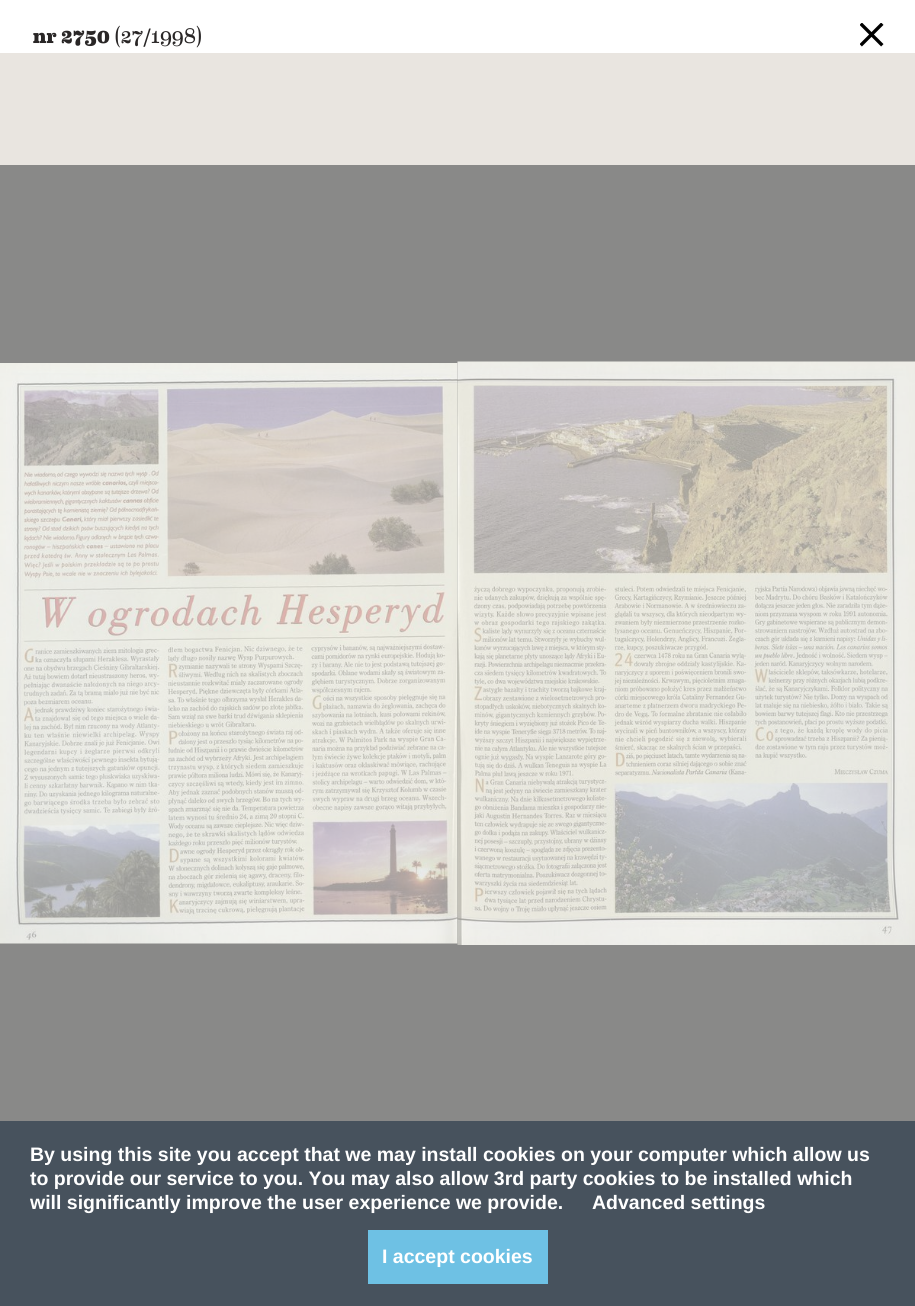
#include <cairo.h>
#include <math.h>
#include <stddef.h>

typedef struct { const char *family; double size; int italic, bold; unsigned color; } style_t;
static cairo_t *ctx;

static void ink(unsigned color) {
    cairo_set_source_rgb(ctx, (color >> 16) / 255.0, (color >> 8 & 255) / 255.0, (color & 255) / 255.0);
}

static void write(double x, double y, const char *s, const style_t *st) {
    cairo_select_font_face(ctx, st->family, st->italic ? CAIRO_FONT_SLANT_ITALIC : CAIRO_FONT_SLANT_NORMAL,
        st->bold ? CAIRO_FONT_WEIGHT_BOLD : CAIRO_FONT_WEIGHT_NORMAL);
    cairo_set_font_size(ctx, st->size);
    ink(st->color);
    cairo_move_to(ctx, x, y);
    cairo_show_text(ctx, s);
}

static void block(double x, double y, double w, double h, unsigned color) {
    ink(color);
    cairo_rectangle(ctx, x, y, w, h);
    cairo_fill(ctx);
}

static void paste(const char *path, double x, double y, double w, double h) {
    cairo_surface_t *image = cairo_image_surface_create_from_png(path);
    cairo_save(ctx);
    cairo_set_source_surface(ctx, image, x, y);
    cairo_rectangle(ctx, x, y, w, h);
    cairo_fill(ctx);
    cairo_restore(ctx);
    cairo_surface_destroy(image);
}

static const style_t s1 = {"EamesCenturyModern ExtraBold", 21, 0, 0, 0x292626};
static const style_t s2 = {"Eames Century Modern", 21, 0, 0, 0x292626};
static const style_t s3 = {"Liberation Sans", 19.5, 0, 1, 0xffffff};

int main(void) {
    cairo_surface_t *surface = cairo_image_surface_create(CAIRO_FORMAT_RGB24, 915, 1306);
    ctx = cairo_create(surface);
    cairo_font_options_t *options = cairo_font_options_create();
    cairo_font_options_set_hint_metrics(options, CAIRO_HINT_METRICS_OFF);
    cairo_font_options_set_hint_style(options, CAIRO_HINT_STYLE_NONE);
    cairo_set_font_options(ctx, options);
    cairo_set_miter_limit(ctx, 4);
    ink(0x898988);
    cairo_paint(ctx);
    block(0, 0, 915, 53, 0xffffff);
    write(33, 43, "nr 2750", &s1);
    write(115, 43, "(27/1998)", &s2);
    paste("pic1.png", 860, 23, 24, 24);
    block(0, 53, 915, 112, 0xe9e5e0);
    paste("pic2.png", 0, 363, 458, 581);
    paste("pic3.png", 457, 361, 458, 584);
    block(0, 1121, 915, 185, 0x47525d);
    write(30, 1161, "By using this site you accept that we may install cookies on your computer which allow us", &s3);
    write(30, 1185, "to provide our service to you. You may also allow 3rd party cookies to be installed which", &s3);
    write(30, 1209, "will significantly improve the user experience we provide.", &s3);
    write(592, 1209, "Advanced settings", &s3);
    block(368, 1230, 180, 54, 0x6ec1e4);
    write(382, 1263, "I accept cookies", &s3);
    cairo_surface_write_to_png(surface, "screenshot.png");
    cairo_font_options_destroy(options);
    cairo_destroy(ctx);
    cairo_surface_destroy(surface);
    return 0;
}
